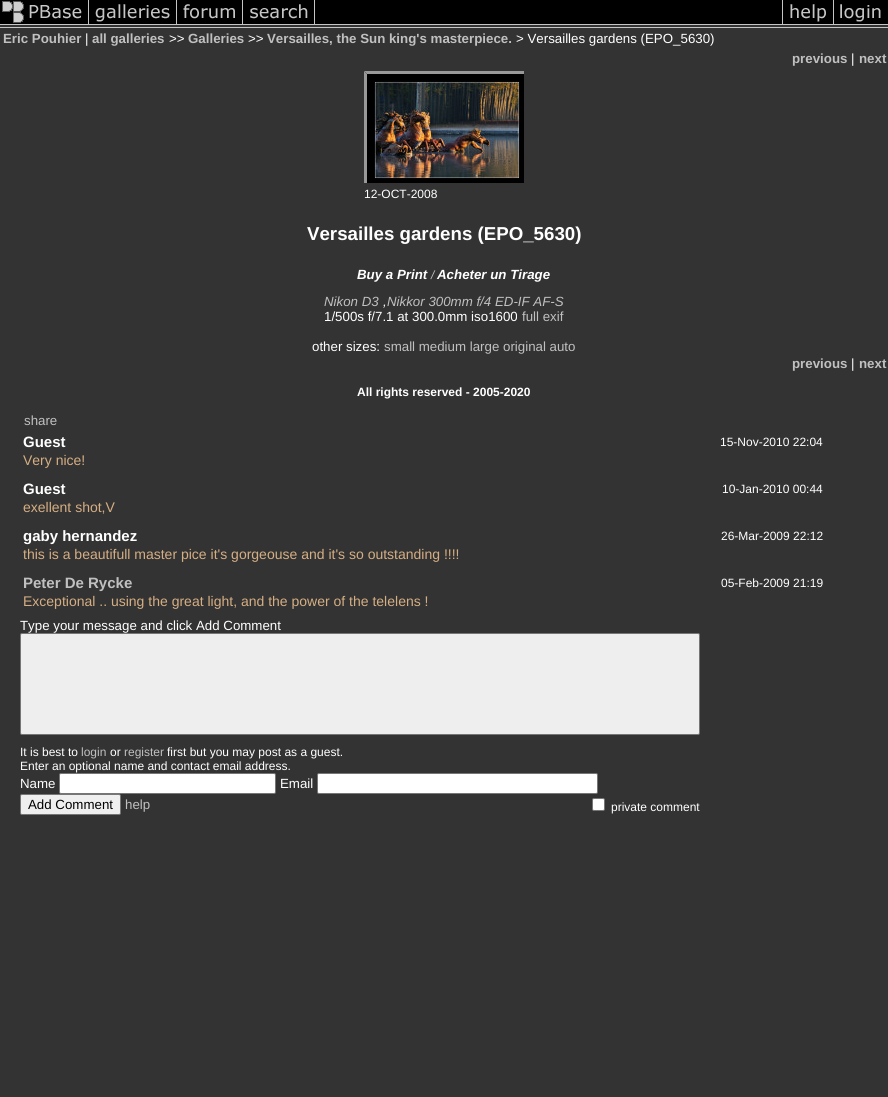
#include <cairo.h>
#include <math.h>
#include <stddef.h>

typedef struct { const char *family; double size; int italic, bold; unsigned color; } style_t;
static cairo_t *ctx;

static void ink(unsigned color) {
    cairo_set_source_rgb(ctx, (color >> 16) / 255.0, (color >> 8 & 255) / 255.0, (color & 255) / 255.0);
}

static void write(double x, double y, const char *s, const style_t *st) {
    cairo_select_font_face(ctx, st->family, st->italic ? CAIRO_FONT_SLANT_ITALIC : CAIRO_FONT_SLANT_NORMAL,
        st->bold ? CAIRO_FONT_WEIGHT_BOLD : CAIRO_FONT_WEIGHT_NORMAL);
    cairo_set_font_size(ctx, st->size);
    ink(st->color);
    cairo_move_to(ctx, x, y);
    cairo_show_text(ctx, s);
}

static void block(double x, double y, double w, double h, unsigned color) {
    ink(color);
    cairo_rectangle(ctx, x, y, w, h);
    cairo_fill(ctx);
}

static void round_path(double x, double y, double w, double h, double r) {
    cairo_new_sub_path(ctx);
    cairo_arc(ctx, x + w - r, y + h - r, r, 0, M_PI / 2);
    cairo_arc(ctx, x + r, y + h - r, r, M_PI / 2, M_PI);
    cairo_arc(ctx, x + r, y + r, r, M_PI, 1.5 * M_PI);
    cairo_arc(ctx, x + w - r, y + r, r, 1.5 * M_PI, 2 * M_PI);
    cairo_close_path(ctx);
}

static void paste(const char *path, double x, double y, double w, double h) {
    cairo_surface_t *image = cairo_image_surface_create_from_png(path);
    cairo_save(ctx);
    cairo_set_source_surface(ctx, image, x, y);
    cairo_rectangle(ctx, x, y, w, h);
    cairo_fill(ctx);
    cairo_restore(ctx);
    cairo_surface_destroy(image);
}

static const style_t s1 = {"Liberation Sans", 13.3, 0, 1, 0xc0c0c0};
static const style_t s2 = {"Liberation Sans", 13.3, 0, 0, 0xffffff};
static const style_t s3 = {"Liberation Sans", 12, 0, 0, 0xffffff};
static const style_t s4 = {"Liberation Sans", 18.7, 0, 1, 0xffffff};
static const style_t s5 = {"Liberation Sans", 13.3, 1, 1, 0xffffff};
static const style_t s6 = {"Liberation Sans", 12, 1, 0, 0xc0c0c0};
static const style_t s7 = {"Liberation Sans", 13.3, 1, 0, 0xc0c0c0};
static const style_t s8 = {"Liberation Sans", 13.3, 1, 0, 0xffffff};
static const style_t s9 = {"Liberation Sans", 13.3, 0, 0, 0xc0c0c0};
static const style_t s10 = {"Liberation Sans", 12, 0, 1, 0xffffff};
static const style_t s11 = {"Liberation Sans", 15, 0, 1, 0xffffff};
static const style_t s12 = {"Liberation Sans", 14, 0, 0, 0xd5ae83};
static const style_t s13 = {"Liberation Sans", 15, 0, 1, 0xc0c0c0};
static const style_t s14 = {"Liberation Sans", 12, 0, 0, 0xc0c0c0};
static const style_t s15 = {"Liberation Sans", 13.3, 0, 0, 0x000000};

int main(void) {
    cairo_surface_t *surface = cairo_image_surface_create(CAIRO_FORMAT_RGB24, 888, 1097);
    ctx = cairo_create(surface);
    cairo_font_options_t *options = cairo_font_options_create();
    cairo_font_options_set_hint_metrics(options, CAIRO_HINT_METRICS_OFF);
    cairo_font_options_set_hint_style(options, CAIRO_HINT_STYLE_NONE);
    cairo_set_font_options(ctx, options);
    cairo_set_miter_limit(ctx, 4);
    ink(0x333333);
    cairo_paint(ctx);
    paste("pic1.png", 0, 0, 89, 28);
    paste("pic2.png", 89, 0, 88, 28);
    paste("pic3.png", 177, 0, 66, 28);
    paste("pic4.png", 243, 0, 72, 28);
    paste("pic5.png", 315, 0, 467, 28);
    paste("pic6.png", 782, 0, 52, 28);
    paste("pic7.png", 834, 0, 54, 28);
    write(3, 43, "Eric Pouhier", &s1);
    write(85, 43, "|", &s2);
    write(92, 43, "all galleries", &s1);
    write(169, 43, ">>", &s2);
    write(188, 43, "Galleries", &s1);
    write(248, 43, ">>", &s2);
    write(267, 43, "Versailles, the Sun king's masterpiece.", &s1);
    write(516, 43, "> Versailles gardens (EPO_5630)", &s2);
    write(792, 63, "previous", &s1);
    write(851, 63, "|", &s2);
    write(859, 63, "next", &s1);
    block(364, 71, 160, 112, 0x000000);
    cairo_save(ctx);
    cairo_rectangle(ctx, 364, 71, 160, 112);
    cairo_clip(ctx);
    ink(0x999999);
    cairo_new_path(ctx);
    cairo_move_to(ctx, 364, 71);
    cairo_line_to(ctx, 530, 71);
    cairo_line_to(ctx, 527, 74);
    cairo_line_to(ctx, 367, 74);
    cairo_close_path(ctx);
    cairo_fill(ctx);
    cairo_new_path(ctx);
    cairo_move_to(ctx, 364, 189);
    cairo_line_to(ctx, 364, 71);
    cairo_line_to(ctx, 367, 74);
    cairo_line_to(ctx, 367, 186);
    cairo_close_path(ctx);
    cairo_fill(ctx);
    cairo_restore(ctx);
    paste("pic8.png", 374, 81, 146, 98);
    write(364, 198, "12-OCT-2008", &s3);
    write(307, 240, "Versailles gardens (EPO_5630)", &s4);
    write(357, 279, "Buy a Print", &s5);
    write(431, 279, "/", &s6);
    write(437, 279, "Acheter un Tirage", &s5);
    write(324, 306, "Nikon D3", &s7);
    write(383, 306, ",", &s8);
    write(387, 306, "Nikkor 300mm f/4 ED-IF AF-S", &s7);
    write(324, 321, "1/500s f/7.1 at 300.0mm iso1600", &s2);
    write(522, 321, "full exif", &s9);
    write(312, 351, "other sizes:", &s2);
    write(384, 351, "small medium large original auto", &s9);
    write(792, 368, "previous", &s1);
    write(851, 368, "|", &s2);
    write(859, 368, "next", &s1);
    write(357, 396, "All rights reserved - 2005-2020", &s10);
    write(24, 425, "share", &s9);
    write(23, 447, "Guest", &s11);
    write(720, 446, "15-Nov-2010 22:04", &s3);
    write(23, 465, "Very nice!", &s12);
    write(23, 494, "Guest", &s11);
    write(722, 493, "10-Jan-2010 00:44", &s3);
    write(23, 512, "exellent shot,V", &s12);
    write(23, 541, "gaby hernandez", &s11);
    write(721, 540, "26-Mar-2009 22:12", &s3);
    write(23, 559, "this is a beautifull master pice it's gorgeouse and it's so outstanding !!!!", &s12);
    write(23, 588, "Peter De Rycke", &s13);
    write(721, 587, "05-Feb-2009 21:19", &s3);
    write(23, 606, "Exceptional .. using the great light, and the power of the telelens !", &s12);
    write(20, 630, "Type your message and click Add Comment", &s2);
    ink(0xeeeeee);
    round_path(20.5, 633.5, 679, 101, 1.5);
    cairo_fill_preserve(ctx);
    ink(0x767676);
    cairo_set_line_width(ctx, 1);
    cairo_stroke(ctx);
    write(20, 756, "It is best to", &s3);
    write(81, 756, "login", &s14);
    write(110, 756, "or", &s3);
    write(124, 756, "register", &s14);
    write(167, 756, "first but you may post as a guest.", &s3);
    write(20, 770, "Enter an optional name and contact email address.", &s3);
    write(20, 788, "Name", &s2);
    round_path(59.5, 773.5, 216, 20, 1.5);
    cairo_fill_preserve(ctx);
    ink(0x767676);
    cairo_stroke(ctx);
    write(280, 788, "Email", &s2);
    round_path(317.5, 773.5, 280, 20, 1.5);
    cairo_fill_preserve(ctx);
    ink(0x767676);
    cairo_stroke(ctx);
    ink(0xefefef);
    round_path(20.5, 794.5, 100, 20, 1.5);
    cairo_fill_preserve(ctx);
    ink(0x767676);
    cairo_stroke(ctx);
    write(28, 809, "Add Comment", &s15);
    write(125, 809, "help", &s9);
    ink(0xffffff);
    round_path(592.5, 798.5, 12, 12, 1.5);
    cairo_fill_preserve(ctx);
    ink(0x767676);
    cairo_stroke(ctx);
    write(611, 811, "private comment", &s3);
    cairo_surface_write_to_png(surface, "screenshot.png");
    cairo_font_options_destroy(options);
    cairo_destroy(ctx);
    cairo_surface_destroy(surface);
    return 0;
}
